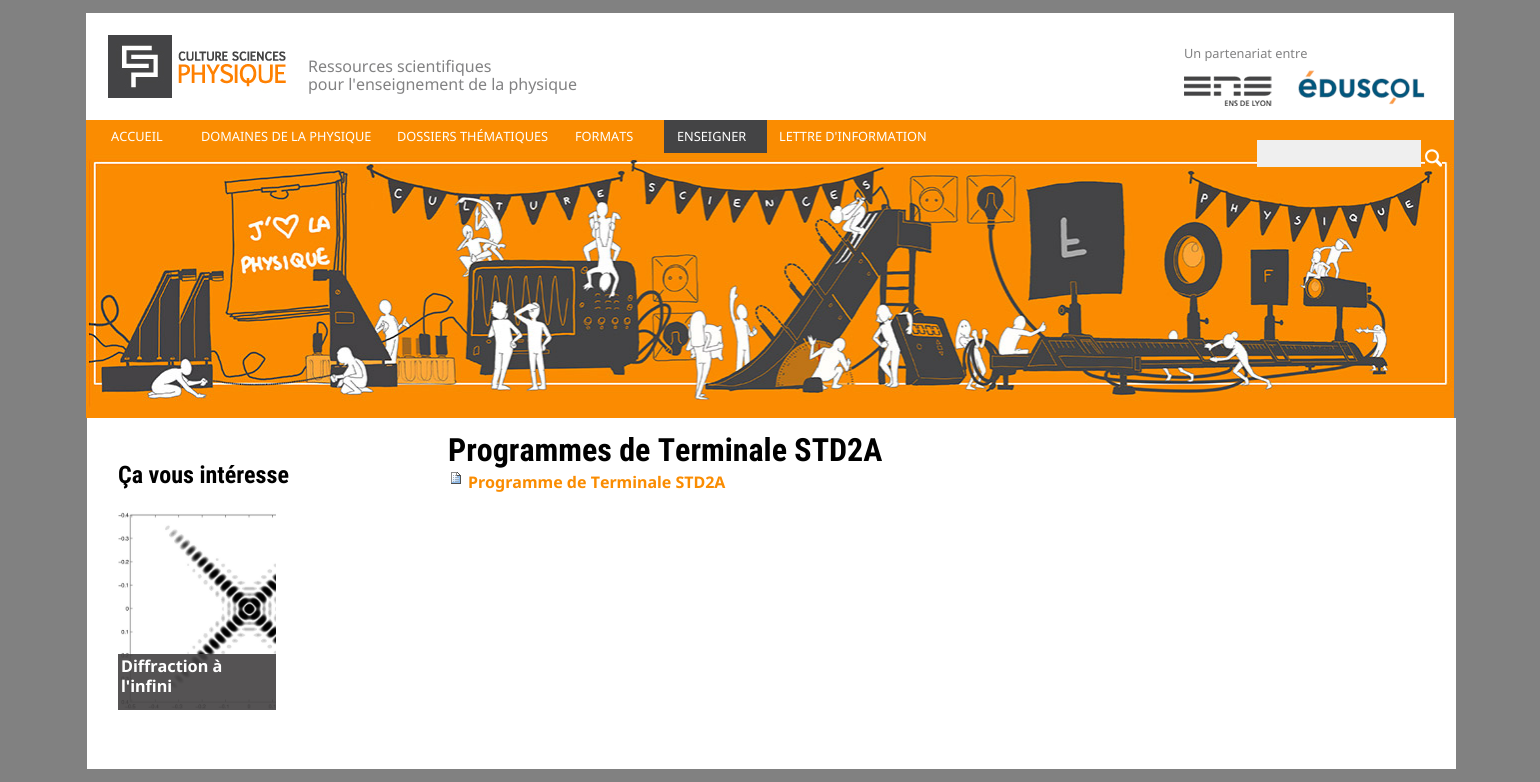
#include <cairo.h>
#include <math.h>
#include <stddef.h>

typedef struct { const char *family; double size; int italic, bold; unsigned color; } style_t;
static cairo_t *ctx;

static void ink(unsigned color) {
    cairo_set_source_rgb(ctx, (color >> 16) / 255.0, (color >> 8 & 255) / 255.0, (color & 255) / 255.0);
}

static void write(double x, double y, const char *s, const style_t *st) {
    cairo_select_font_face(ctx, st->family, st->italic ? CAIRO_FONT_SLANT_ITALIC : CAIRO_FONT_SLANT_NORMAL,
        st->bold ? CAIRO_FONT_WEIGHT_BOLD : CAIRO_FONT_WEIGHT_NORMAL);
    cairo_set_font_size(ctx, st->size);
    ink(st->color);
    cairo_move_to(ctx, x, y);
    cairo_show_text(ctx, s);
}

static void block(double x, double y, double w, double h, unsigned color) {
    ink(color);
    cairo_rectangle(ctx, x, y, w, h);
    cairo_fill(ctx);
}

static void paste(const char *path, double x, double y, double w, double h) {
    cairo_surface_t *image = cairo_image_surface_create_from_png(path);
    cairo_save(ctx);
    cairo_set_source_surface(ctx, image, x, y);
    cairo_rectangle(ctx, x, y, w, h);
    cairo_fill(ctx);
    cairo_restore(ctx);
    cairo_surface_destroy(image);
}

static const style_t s1 = {"Noto Sans", 12.75, 0, 0, 0x828283};
static const style_t s2 = {"Noto Sans", 16, 0, 0, 0x828283};
static const style_t s3 = {"Noto Sans", 12.75, 0, 0, 0xffffff};
static const style_t s4 = {"Roboto Condensed", 24, 0, 1, 0x000000};
static const style_t s5 = {"Noto Sans", 16.25, 0, 1, 0xffffff};
static const style_t s6 = {"Roboto Condensed", 32, 0, 1, 0x000000};
static const style_t s7 = {"Noto Sans", 16, 0, 1, 0xfa8c01};

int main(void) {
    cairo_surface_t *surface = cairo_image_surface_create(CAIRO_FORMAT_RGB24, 1540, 782);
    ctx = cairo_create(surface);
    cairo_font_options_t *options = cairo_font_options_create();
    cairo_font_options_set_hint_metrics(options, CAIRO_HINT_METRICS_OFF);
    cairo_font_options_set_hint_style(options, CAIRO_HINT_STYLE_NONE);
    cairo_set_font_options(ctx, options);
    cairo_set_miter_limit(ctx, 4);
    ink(0x818181);
    cairo_paint(ctx);
    block(86, 13, 1368, 107, 0xffffff);
    paste("pic1.png", 108, 35, 178, 63);
    write(1184, 58, "Un partenariat entre", &s1);
    paste("pic2.png", 1184, 76, 88, 30);
    paste("pic3.png", 1298, 70, 127, 35);
    write(308, 72, "Ressources scientifiques", &s2);
    write(308, 90, "pour l'enseignement de la physique", &s2);
    block(86, 120, 1368, 33, 0xfa8c01);
    write(111, 141, "ACCUEIL", &s3);
    write(201, 141, "DOMAINES DE LA PHYSIQUE", &s3);
    write(397, 141, "DOSSIERS THÉMATIQUES", &s3);
    write(575, 141, "FORMATS", &s3);
    block(664, 120, 103, 33, 0x444445);
    write(677, 141, "ENSEIGNER", &s3);
    write(779, 141, "LETTRE D'INFORMATION", &s3);
    paste("pic5.png", 86, 153, 1368, 265);
    block(1257, 140, 164, 27, 0xefefef);
    paste("pic4.png", 1425, 149, 17, 18);
    block(87, 418, 1369, 351, 0xffffff);
    write(118, 483, "Ça vous intéresse", &s4);
    paste("pic6.png", 118, 512, 158, 197);
    cairo_set_source_rgba(ctx, 0.263, 0.255, 0.259, 0.9);
    cairo_rectangle(ctx, 118, 654, 158, 56);
    cairo_fill(ctx);
    write(121, 672, "Diffraction à", &s5);
    write(121, 692, "l'infini", &s5);
    write(448, 461, "Programmes de Terminale STD2A", &s6);
    paste("pic7.png", 451, 472, 10, 12);
    write(468, 488, "Programme de Terminale STD2A", &s7);
    cairo_surface_write_to_png(surface, "screenshot.png");
    cairo_font_options_destroy(options);
    cairo_destroy(ctx);
    cairo_surface_destroy(surface);
    return 0;
}
